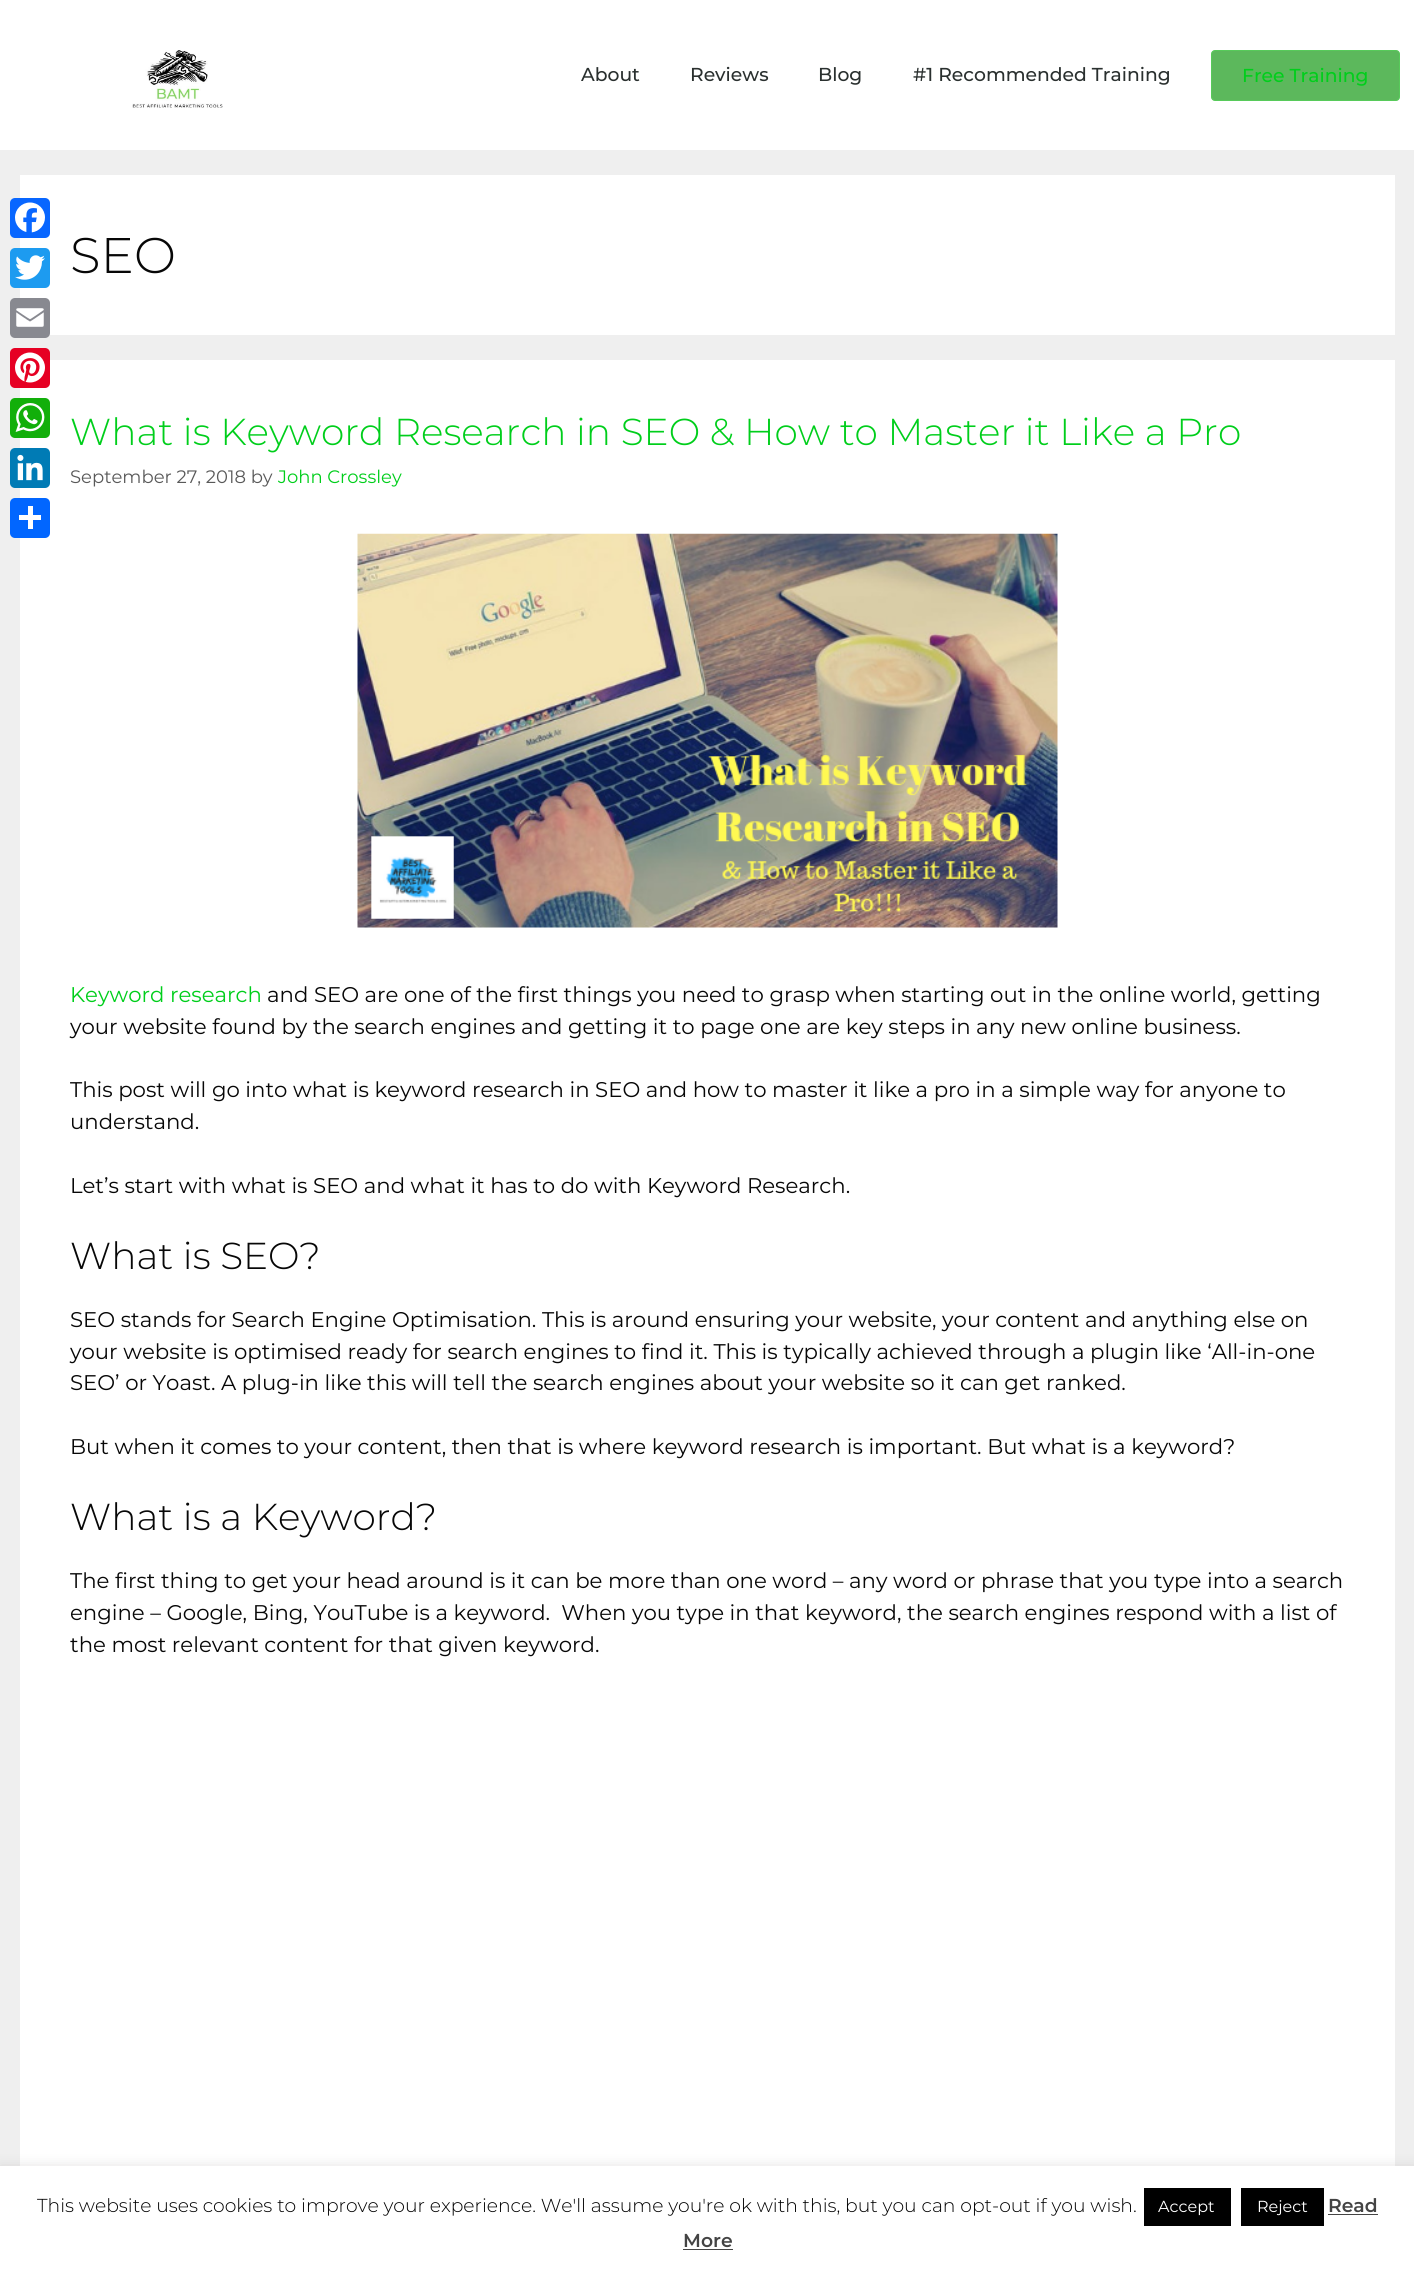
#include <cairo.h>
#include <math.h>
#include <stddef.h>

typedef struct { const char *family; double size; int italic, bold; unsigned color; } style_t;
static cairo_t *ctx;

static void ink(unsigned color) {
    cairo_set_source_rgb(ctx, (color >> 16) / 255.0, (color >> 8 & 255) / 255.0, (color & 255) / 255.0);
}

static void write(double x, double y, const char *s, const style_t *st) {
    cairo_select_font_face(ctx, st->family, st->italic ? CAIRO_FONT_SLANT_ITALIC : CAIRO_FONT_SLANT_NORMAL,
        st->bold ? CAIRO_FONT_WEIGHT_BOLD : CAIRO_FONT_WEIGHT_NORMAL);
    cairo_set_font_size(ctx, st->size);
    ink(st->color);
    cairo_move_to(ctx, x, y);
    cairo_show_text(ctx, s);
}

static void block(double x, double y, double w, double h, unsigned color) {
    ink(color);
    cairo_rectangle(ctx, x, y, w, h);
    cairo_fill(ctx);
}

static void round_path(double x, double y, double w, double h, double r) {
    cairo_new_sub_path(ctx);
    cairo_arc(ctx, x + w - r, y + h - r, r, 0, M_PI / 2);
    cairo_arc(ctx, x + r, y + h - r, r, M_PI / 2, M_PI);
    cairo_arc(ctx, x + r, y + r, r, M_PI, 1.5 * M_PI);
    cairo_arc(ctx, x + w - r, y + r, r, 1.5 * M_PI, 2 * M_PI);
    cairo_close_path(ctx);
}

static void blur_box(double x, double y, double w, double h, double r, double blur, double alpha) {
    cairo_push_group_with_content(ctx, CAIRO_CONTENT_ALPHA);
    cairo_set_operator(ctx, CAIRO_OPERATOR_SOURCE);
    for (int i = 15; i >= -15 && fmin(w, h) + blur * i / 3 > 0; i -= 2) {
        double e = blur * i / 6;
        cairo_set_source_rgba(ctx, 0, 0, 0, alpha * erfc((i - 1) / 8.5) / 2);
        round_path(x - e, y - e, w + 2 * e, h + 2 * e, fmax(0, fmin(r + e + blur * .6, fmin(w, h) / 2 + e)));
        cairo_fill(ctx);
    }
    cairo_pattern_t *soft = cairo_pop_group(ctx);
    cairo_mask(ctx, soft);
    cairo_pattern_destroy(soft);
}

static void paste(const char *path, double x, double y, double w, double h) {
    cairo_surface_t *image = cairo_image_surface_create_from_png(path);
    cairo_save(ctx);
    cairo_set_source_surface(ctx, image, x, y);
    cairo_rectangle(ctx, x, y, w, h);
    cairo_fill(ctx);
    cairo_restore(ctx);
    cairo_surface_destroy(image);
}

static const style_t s1 = {"Montserrat Medium", 18.75, 0, 0, 0x2a302f};
static const style_t s2 = {"Montserrat Medium", 18.75, 0, 0, 0x00ce1b};
static const style_t s3 = {"Montserrat Light", 50, 0, 0, 0x070707};
static const style_t s4 = {"Montserrat Light", 37.5, 0, 0, 0x00ce1b};
static const style_t s5 = {"Montserrat", 18, 0, 0, 0x595959};
static const style_t s6 = {"Montserrat", 18, 0, 0, 0x00ce1b};
static const style_t s7 = {"Montserrat", 21.25, 0, 0, 0x00ce1b};
static const style_t s8 = {"Montserrat", 21.25, 0, 0, 0x070707};
static const style_t s9 = {"Montserrat Light", 37.5, 0, 0, 0x070707};
static const style_t s10 = {"Montserrat Light", 18.75, 0, 0, 0x000000};
static const style_t s11 = {"Montserrat", 16, 0, 0, 0xffffff};
static const style_t s12 = {"Montserrat SemiBold", 18.75, 0, 0, 0x444444};

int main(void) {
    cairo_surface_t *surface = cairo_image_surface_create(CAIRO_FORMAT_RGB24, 1414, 2270);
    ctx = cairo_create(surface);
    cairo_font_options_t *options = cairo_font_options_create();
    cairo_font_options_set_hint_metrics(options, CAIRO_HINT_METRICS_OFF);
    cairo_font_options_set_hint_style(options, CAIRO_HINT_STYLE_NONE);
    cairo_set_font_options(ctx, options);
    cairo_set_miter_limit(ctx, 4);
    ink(0xefefef);
    cairo_paint(ctx);
    block(0, 0, 1414, 150, 0xffffff);
    paste("pic1.png", 132, 50, 91, 58);
    write(581, 81, "About", &s1);
    write(690, 81, "Reviews", &s1);
    write(818, 81, "Blog", &s1);
    write(913, 81, "#1 Recommended Training", &s1);
    ink(0x5cb85c);
    round_path(1211.5, 50.5, 188, 50, 3.5);
    cairo_fill_preserve(ctx);
    ink(0x57ca5a);
    cairo_set_line_width(ctx, 1);
    cairo_stroke(ctx);
    write(1242, 82, "Free Training", &s2);
    block(20, 175, 1375, 160, 0xffffff);
    ink(0x0866ff);
    round_path(10, 198, 40, 40, 5);
    cairo_fill(ctx);
    paste("pic2.png", 15, 202, 30, 31);
    ink(0x1d9bf0);
    round_path(10, 248, 40, 40, 5);
    cairo_fill(ctx);
    paste("pic3.png", 15, 255, 30, 25);
    ink(0x888990);
    round_path(10, 298, 40, 40, 5);
    cairo_fill(ctx);
    paste("pic4.png", 16, 308, 28, 19);
    block(20, 360, 1375, 1806, 0xffffff);
    ink(0xe60023);
    round_path(10, 348, 40, 40, 5);
    cairo_fill(ctx);
    paste("pic5.png", 15, 352, 30, 31);
    ink(0x12af0a);
    round_path(10, 398, 40, 40, 5);
    cairo_fill(ctx);
    paste("pic6.png", 15, 403, 30, 29);
    ink(0x007bb5);
    round_path(10, 448, 40, 40, 5);
    cairo_fill(ctx);
    paste("pic7.png", 17, 454, 26, 27);
    ink(0x0166ff);
    round_path(10, 498, 40, 40, 5);
    cairo_fill(ctx);
    block(28, 506, 5, 23, 0xffffff);
    block(19, 515, 22, 5, 0xffffff);
    write(70, 273, "SEO", &s3);
    write(70, 445, "What is Keyword Research in SEO & How to Master it Like a Pro", &s4);
    write(70, 483, "September 27, 2018 by", &s5);
    write(278, 483, "John Crossley", &s6);
    paste("pic8.png", 357, 533, 701, 395);
    write(70, 1002, "Keyword research", &s7);
    write(267, 1002, "and SEO are one of the first things you need to grasp when starting out in the online world, getting", &s8);
    write(70, 1034, "your website found by the search engines and getting it to page one are key steps in any new online business.", &s8);
    write(70, 1097, "This post will go into what is keyword research in SEO and how to master it like a pro in a simple way for anyone to", &s8);
    write(70, 1129, "understand.", &s8);
    write(70, 1193, "Let’s start with what is SEO and what it has to do with Keyword Research.", &s8);
    write(70, 1269, "What is SEO?", &s9);
    write(70, 1327, "SEO stands for Search Engine Optimisation. This is around ensuring your website, your content and anything else on", &s8);
    write(70, 1359, "your website is optimised ready for search engines to find it. This is typically achieved through a plugin like ‘All-in-one", &s8);
    write(70, 1390, "SEO’ or Yoast. A plug-in like this will tell the search engines about your website so it can get ranked.", &s8);
    write(70, 1454, "But when it comes to your content, then that is where keyword research is important. But what is a keyword?", &s8);
    write(70, 1530, "What is a Keyword?", &s9);
    write(70, 1588, "The first thing to get your head around is it can be more than one word – any word or phrase that you type into a search", &s8);
    write(70, 1620, "engine – Google, Bing, YouTube is a keyword.  When you type in that keyword, the search engines respond with a list of", &s8);
    write(70, 1652, "the most relevant content for that given keyword.", &s8);
    ink(0xacabab);
    blur_box(0, 2165, 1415, 104, 0, 6, 0.3);
    block(0, 2166, 1414, 104, 0xffffff);
    write(37, 2212, "This website uses cookies to improve your experience. We'll assume you're ok with this, but you can opt-out if you wish.", &s10);
    block(1144, 2188, 87, 38, 0x000000);
    write(1158, 2212, "Accept", &s11);
    block(1241, 2188, 83, 38, 0x000000);
    write(1257, 2212, "Reject", &s11);
    write(1328, 2212, "Read", &s12);
    block(1328, 2214, 50, 1, 0x444444);
    write(683, 2247, "More", &s12);
    block(683, 2249, 50, 1, 0x444444);
    cairo_surface_write_to_png(surface, "screenshot.png");
    cairo_font_options_destroy(options);
    cairo_destroy(ctx);
    cairo_surface_destroy(surface);
    return 0;
}
